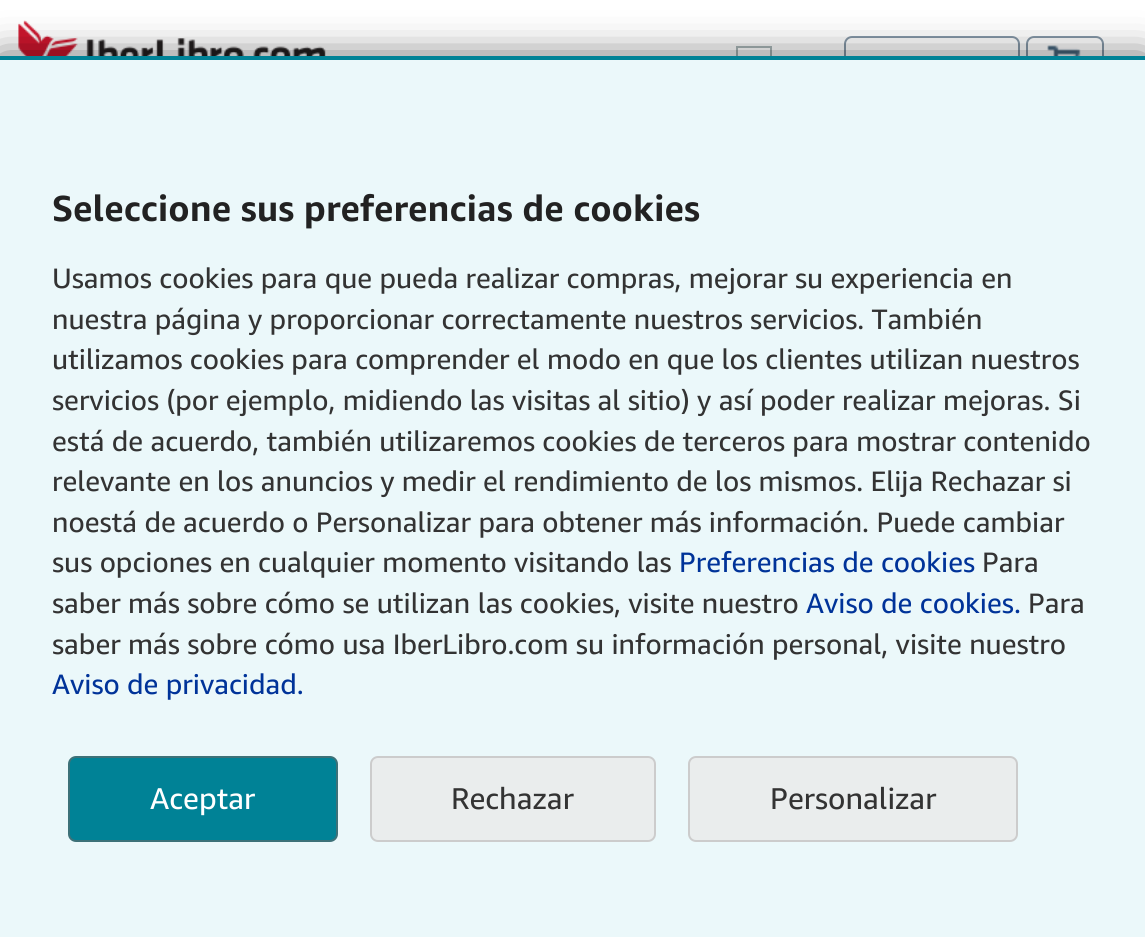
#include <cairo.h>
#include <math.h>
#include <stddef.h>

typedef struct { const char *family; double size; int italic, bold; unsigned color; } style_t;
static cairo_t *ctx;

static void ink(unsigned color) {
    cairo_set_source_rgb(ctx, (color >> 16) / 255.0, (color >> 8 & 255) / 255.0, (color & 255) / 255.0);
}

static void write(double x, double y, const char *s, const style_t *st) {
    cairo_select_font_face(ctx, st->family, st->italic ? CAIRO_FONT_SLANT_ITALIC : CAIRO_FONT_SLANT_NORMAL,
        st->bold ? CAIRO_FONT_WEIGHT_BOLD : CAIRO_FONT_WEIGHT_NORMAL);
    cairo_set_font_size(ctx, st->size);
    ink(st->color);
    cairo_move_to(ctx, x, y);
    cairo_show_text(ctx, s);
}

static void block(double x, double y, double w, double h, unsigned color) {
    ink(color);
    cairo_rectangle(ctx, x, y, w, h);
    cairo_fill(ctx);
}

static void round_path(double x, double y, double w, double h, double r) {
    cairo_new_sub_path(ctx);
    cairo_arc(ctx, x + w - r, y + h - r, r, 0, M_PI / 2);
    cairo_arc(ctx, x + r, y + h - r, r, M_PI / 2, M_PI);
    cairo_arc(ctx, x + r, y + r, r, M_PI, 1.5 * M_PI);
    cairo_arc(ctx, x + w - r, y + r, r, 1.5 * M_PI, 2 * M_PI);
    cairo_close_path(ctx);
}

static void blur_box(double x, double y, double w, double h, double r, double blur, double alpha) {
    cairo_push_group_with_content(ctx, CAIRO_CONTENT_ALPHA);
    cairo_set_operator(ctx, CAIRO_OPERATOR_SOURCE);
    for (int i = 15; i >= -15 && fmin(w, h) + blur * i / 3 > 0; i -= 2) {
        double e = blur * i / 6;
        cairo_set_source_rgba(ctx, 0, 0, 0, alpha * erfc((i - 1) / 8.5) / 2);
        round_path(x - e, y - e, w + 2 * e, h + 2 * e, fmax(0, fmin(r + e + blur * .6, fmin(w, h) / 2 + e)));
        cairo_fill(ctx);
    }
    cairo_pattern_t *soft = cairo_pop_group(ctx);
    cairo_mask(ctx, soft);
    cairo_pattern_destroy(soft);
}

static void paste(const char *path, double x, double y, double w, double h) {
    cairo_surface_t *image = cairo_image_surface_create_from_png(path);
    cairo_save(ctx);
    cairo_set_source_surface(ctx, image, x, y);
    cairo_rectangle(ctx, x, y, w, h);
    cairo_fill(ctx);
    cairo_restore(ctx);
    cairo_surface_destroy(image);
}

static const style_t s1 = {"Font", 36, 0, 1, 0x222222};
static const style_t s2 = {"Font", 28, 0, 0, 0x333333};
static const style_t s3 = {"Font", 28, 0, 0, 0x003399};
static const style_t s4 = {"Font", 30, 0, 0, 0xffffff};
static const style_t s5 = {"Font", 30, 0, 0, 0x333333};

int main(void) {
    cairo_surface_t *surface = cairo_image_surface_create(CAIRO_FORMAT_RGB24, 1145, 937);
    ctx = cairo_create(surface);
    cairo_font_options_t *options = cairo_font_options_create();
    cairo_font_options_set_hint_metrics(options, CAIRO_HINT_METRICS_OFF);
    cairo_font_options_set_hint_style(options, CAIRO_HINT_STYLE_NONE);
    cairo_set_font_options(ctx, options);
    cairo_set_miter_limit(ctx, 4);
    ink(0xffffff);
    cairo_paint(ctx);
    paste("pic1.png", 16, 20, 310, 36);
    cairo_rectangle(ctx, 737, 47, 34, 26);
    ink(0xaab7b8);
    cairo_stroke(ctx);
    round_path(845, 37, 174, 48, 7);
    ink(0x8799a9);
    cairo_stroke(ctx);
    round_path(1027, 37, 76, 48, 7);
    cairo_stroke(ctx);
    paste("pic2.png", 1047, 45, 34, 11);
    ink(0x000000);
    blur_box(0, 60, 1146, 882, 0, 20, 0.7);
    block(0, 60, 1145, 877, 0xebf8fa);
    block(0, 56, 1145, 4, 0x008296);
    write(52, 221, "Seleccione sus preferencias de cookies", &s1);
    write(52, 288, "Usamos cookies para que pueda realizar compras, mejorar su experiencia en", &s2);
    write(52, 329, "nuestra página y proporcionar correctamente nuestros servicios. También", &s2);
    write(52, 369, "utilizamos cookies para comprender el modo en que los clientes utilizan nuestros", &s2);
    write(52, 410, "servicios (por ejemplo, midiendo las visitas al sitio) y así poder realizar mejoras. Si", &s2);
    write(52, 451, "está de acuerdo, también utilizaremos cookies de terceros para mostrar contenido", &s2);
    write(52, 491, "relevante en los anuncios y medir el rendimiento de los mismos. Elija Rechazar si", &s2);
    write(52, 532, "noestá de acuerdo o Personalizar para obtener más información. Puede cambiar", &s2);
    write(52, 572, "sus opciones en cualquier momento visitando las", &s2);
    write(679, 572, "Preferencias de cookies", &s3);
    write(982, 572, "Para", &s2);
    write(52, 613, "saber más sobre cómo se utilizan las cookies, visite nuestro", &s2);
    write(806, 613, "Aviso de cookies.", &s3);
    write(1028, 613, "Para", &s2);
    write(52, 654, "saber más sobre cómo usa IberLibro.com su información personal, visite nuestro", &s2);
    write(52, 694, "Aviso de privacidad.", &s3);
    ink(0x008296);
    round_path(69, 757, 268, 84, 7);
    cairo_fill_preserve(ctx);
    ink(0x3d7178);
    cairo_stroke(ctx);
    write(150, 809, "Aceptar", &s4);
    ink(0xeaeded);
    round_path(371, 757, 284, 84, 7);
    cairo_fill_preserve(ctx);
    ink(0xcccccc);
    cairo_stroke(ctx);
    write(451, 809, "Rechazar", &s5);
    ink(0xeaeded);
    round_path(689, 757, 328, 84, 7);
    cairo_fill_preserve(ctx);
    ink(0xcccccc);
    cairo_stroke(ctx);
    write(770, 809, "Personalizar", &s5);
    cairo_surface_write_to_png(surface, "screenshot.png");
    cairo_font_options_destroy(options);
    cairo_destroy(ctx);
    cairo_surface_destroy(surface);
    return 0;
}
